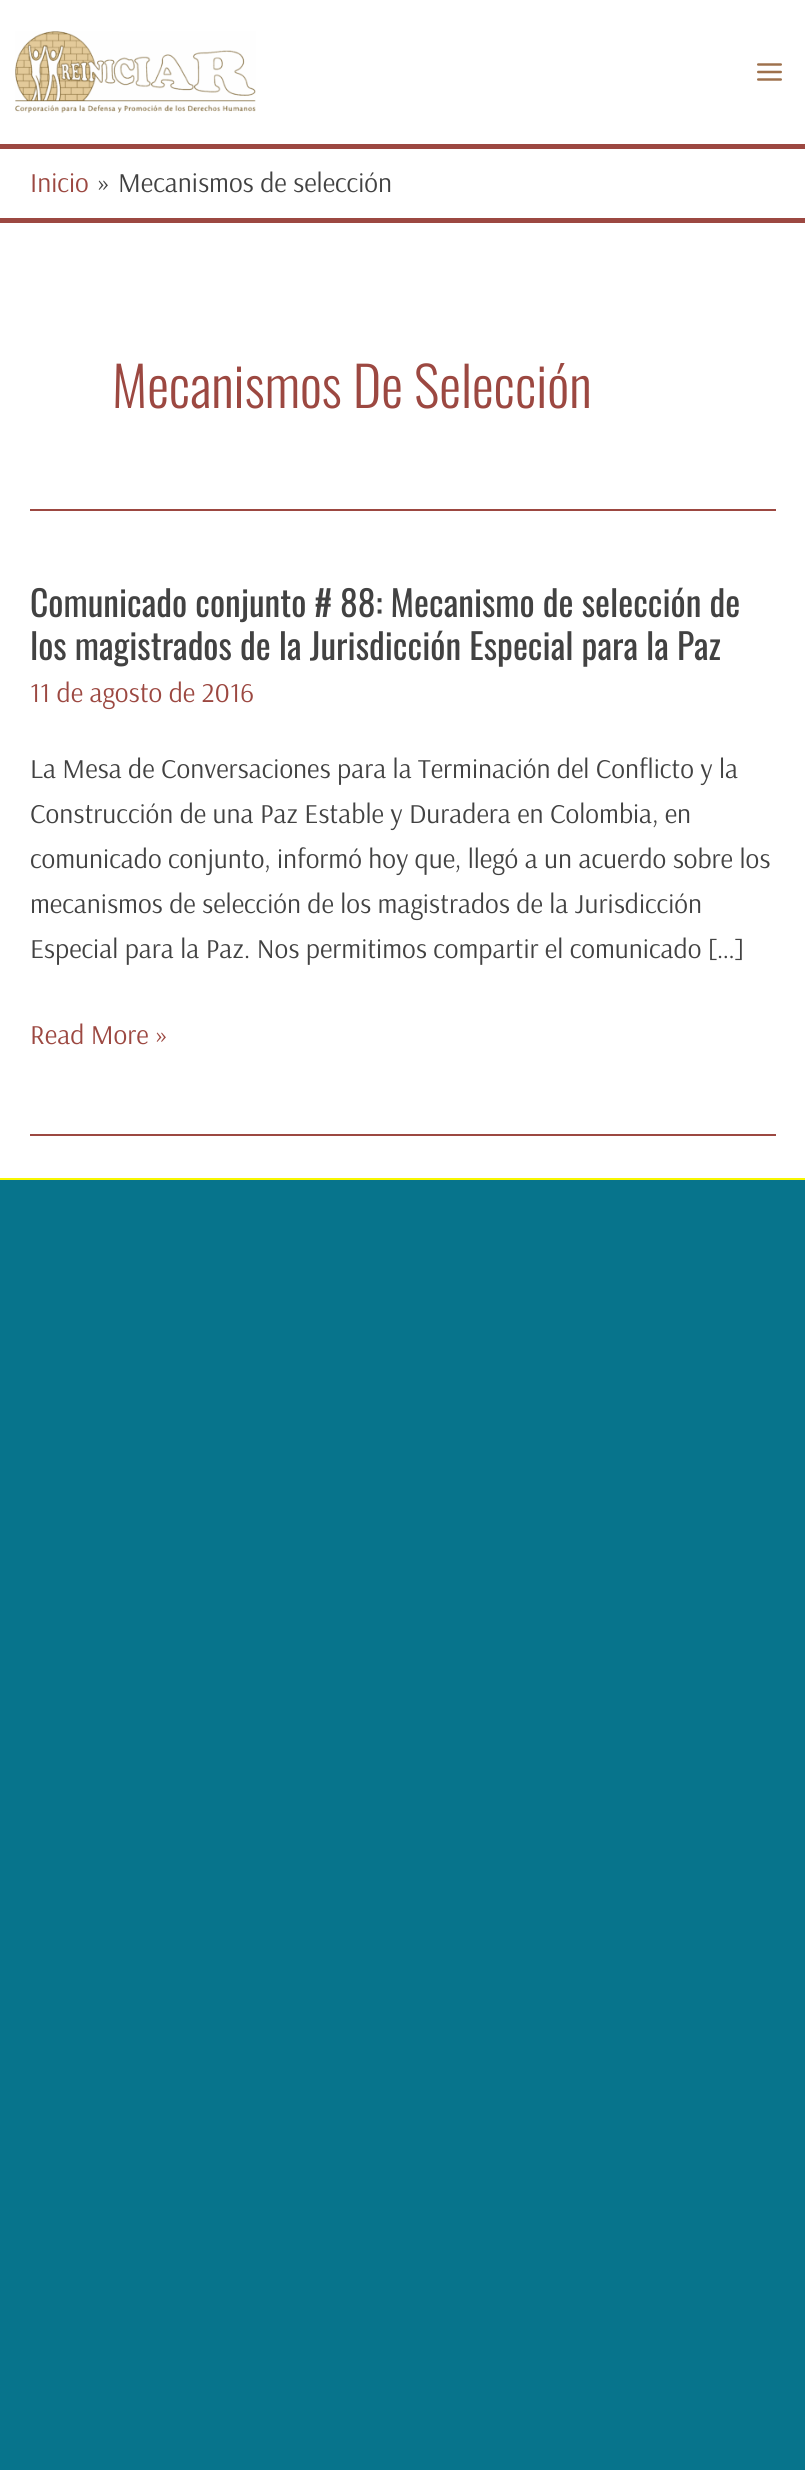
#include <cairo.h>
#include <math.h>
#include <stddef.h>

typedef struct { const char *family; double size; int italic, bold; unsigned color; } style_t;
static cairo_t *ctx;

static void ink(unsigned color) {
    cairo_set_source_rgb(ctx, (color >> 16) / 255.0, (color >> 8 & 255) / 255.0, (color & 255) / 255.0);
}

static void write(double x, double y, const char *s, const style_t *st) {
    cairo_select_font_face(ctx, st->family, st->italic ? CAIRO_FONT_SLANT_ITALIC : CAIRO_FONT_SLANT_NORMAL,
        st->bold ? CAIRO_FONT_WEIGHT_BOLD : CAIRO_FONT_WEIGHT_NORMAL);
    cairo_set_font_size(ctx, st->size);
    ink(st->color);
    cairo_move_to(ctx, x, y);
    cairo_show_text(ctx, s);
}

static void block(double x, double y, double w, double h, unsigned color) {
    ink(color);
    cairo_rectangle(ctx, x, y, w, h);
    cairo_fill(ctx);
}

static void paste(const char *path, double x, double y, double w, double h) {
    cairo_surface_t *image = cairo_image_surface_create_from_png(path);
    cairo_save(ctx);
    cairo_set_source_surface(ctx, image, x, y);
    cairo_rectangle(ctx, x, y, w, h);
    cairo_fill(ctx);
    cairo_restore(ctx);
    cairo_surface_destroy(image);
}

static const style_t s1 = {"Arsenal", 27.35, 0, 0, 0x9c4841};
static const style_t s2 = {"Arsenal", 27.35, 0, 0, 0x424242};
static const style_t s3 = {"Oswald Light", 54.75, 0, 0, 0x9c4841};
static const style_t s4 = {"Oswald", 35.6, 0, 0, 0x424242};

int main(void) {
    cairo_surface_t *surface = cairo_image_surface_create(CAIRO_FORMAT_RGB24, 805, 2470);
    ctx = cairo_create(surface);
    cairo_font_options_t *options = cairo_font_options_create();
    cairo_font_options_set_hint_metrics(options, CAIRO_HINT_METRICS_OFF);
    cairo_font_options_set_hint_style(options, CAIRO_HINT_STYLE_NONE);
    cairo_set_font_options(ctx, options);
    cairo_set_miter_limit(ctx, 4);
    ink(0xffffff);
    cairo_paint(ctx);
    block(0, 144, 805, 5, 0x9c4841);
    paste("pic1.png", 15, 31, 241, 82);
    paste("pic2.png", 757, 63, 25, 18);
    block(0, 218, 805, 5, 0x9c4841);
    write(30, 192, "Inicio", &s1);
    write(97, 192, "»", &s2);
    write(118, 192, "Mecanismos de selección", &s2);
    block(30, 509, 746, 2, 0x9c4841);
    write(112, 408, "Mecanismos De Selección", &s3);
    block(30, 1134, 746, 2, 0x9c4841);
    write(30, 617, "Comunicado conjunto # 88: Mecanismo de selección de", &s4);
    write(30, 660, "los magistrados de la Jurisdicción Especial para la Paz", &s4);
    write(30, 702, "11 de agosto de 2016", &s1);
    write(30, 778, "La Mesa de Conversaciones para la Terminación del Conflicto y la", &s2);
    write(30, 823, "Construcción de una Paz Estable y Duradera en Colombia, en", &s2);
    write(30, 868, "comunicado conjunto, informó hoy que, llegó a un acuerdo sobre los", &s2);
    write(30, 913, "mecanismos de selección de los magistrados de la Jurisdicción", &s2);
    write(30, 958, "Especial para la Paz. Nos permitimos compartir el comunicado […]", &s2);
    write(30, 1044, "Read More »", &s1);
    block(0, 1180, 805, 1290, 0x07748c);
    block(0, 1178, 805, 2, 0xf7f700);
    cairo_surface_write_to_png(surface, "screenshot.png");
    cairo_font_options_destroy(options);
    cairo_destroy(ctx);
    cairo_surface_destroy(surface);
    return 0;
}
